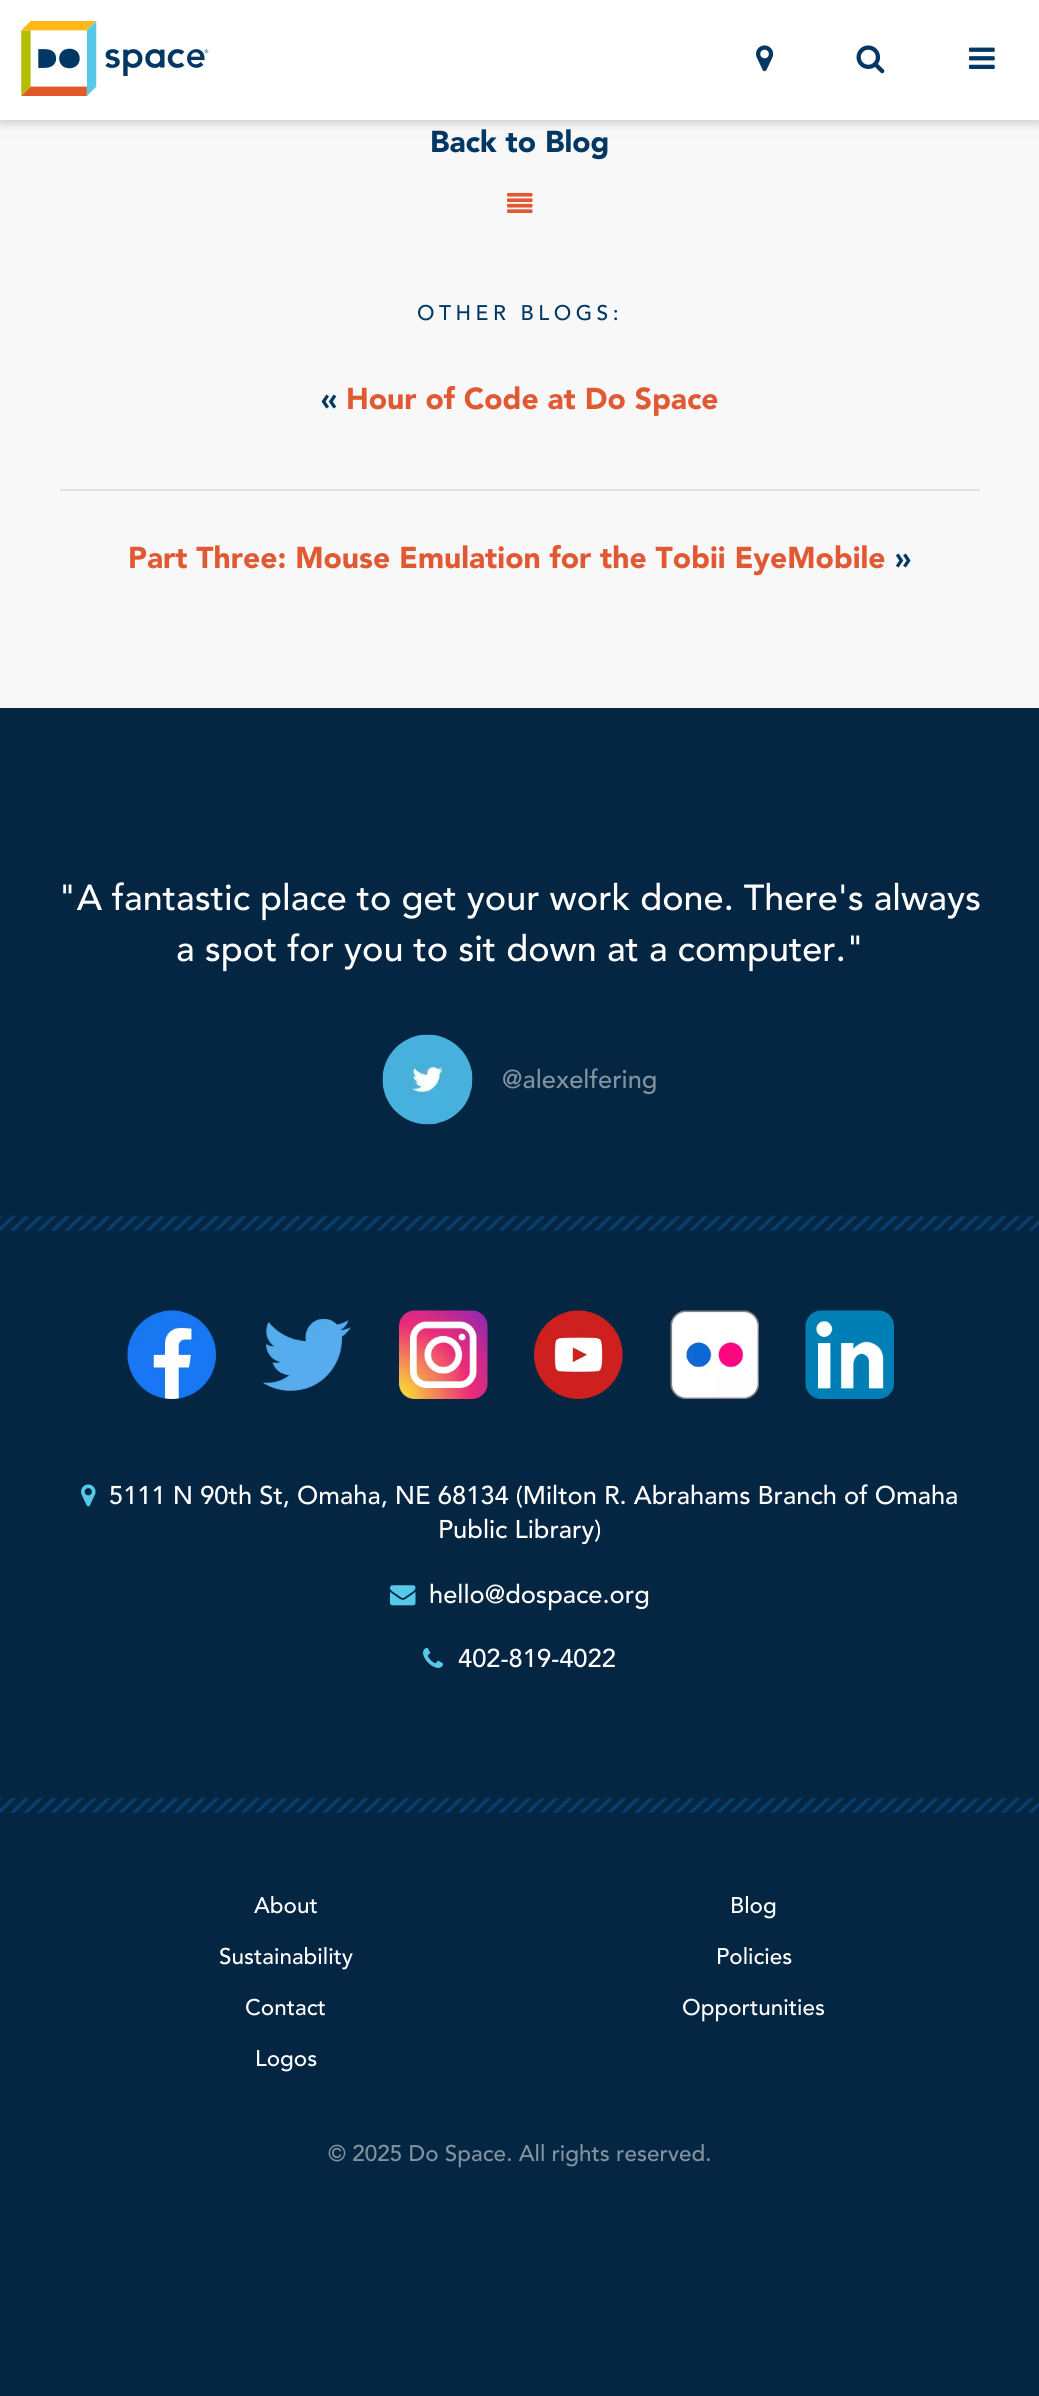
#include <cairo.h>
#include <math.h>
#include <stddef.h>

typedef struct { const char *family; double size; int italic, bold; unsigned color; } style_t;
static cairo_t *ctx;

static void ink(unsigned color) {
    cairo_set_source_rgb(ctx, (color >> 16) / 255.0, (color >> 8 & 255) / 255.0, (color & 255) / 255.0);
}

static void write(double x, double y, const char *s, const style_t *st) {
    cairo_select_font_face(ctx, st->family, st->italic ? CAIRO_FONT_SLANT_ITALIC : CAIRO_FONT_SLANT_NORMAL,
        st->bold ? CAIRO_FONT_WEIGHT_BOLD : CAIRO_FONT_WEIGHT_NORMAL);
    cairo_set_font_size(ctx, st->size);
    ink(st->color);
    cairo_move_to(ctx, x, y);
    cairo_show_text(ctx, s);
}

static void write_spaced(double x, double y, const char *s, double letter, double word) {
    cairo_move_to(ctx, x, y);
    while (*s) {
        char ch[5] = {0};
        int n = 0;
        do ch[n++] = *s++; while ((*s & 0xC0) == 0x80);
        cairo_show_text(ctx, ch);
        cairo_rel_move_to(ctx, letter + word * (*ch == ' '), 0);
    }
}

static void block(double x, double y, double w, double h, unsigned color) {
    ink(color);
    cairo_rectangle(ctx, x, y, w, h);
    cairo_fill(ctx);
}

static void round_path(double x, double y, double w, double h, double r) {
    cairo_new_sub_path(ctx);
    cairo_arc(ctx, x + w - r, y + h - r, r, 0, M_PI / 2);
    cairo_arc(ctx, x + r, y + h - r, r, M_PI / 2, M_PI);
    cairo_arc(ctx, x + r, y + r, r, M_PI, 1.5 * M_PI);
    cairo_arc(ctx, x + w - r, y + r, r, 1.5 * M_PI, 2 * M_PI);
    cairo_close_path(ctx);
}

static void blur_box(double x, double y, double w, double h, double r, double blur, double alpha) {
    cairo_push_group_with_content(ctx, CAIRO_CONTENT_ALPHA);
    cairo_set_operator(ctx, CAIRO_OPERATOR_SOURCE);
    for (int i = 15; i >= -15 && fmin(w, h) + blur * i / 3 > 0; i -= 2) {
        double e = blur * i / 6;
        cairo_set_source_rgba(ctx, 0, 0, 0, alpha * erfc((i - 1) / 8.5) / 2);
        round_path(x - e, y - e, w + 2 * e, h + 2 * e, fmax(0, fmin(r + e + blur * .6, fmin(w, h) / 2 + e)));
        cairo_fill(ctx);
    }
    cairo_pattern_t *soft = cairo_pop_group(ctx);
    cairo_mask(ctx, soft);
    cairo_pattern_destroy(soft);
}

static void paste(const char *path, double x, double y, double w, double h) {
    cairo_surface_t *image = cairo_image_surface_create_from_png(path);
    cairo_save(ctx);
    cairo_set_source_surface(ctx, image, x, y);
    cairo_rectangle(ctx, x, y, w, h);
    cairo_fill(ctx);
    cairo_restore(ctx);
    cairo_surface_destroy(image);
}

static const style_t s1 = {"avenir Black", 30, 0, 0, 0x013863};
static const style_t s2 = {"avenir Black", 30, 0, 0, 0xe05933};
static const style_t s3 = {"avenir Medium", 36, 0, 0, 0xffffff};
static const style_t s4 = {"avenir Medium", 25.5, 0, 0, 0x8192a0};
static const style_t s5 = {"avenir Medium", 25.5, 0, 0, 0xffffff};
static const style_t s6 = {"avenir Medium", 22.5, 0, 0, 0xffffff};
static const style_t s7 = {"avenir Medium", 22.5, 0, 0, 0x8192a0};

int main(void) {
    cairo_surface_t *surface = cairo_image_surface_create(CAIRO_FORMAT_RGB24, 1039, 2396);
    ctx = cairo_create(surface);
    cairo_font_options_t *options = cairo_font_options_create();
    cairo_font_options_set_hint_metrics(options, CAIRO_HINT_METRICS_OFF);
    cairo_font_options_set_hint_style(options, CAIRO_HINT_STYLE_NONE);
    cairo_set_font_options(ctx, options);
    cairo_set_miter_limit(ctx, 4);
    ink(0xf8f8f9);
    cairo_paint(ctx);
    ink(0x000000);
    blur_box(0, 0, 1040, 120, 0, 15, 0.05);
    blur_box(0, 3, 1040, 120, 0, 4, 0.15);
    block(0, 0, 1039, 120, 0xffffff);
    paste("pic1.png", 21, 21, 188, 75);
    paste("pic2.png", 756, 45, 18, 27);
    paste("pic3.png", 856, 45, 29, 29);
    paste("pic4.png", 969, 47, 26, 22);
    write(430, 152, "Back to Blog", &s1);
    paste("pic5.png", 507, 192, 26, 21);
    cairo_select_font_face(ctx, "avenir Medium", CAIRO_FONT_SLANT_NORMAL, CAIRO_FONT_WEIGHT_NORMAL);
    cairo_set_font_size(ctx, 21);
    write_spaced(417, 320, "OTHER BLOGS:", 4.5, 0);
    block(60, 489, 920, 2, 0xe0e0e0);
    write(321, 409, "«", &s1);
    write(346, 409, "Hour of Code at Do Space", &s2);
    write(128, 568, "Part Three: Mouse Emulation for the Tobii EyeMobile", &s2);
    write(895, 568, "»", &s1);
    block(0, 708, 1039, 1688, 0x042643);
    write(58, 910, "\"A fantastic place to get your work done. There's always", &s3);
    write(176, 961, "a spot for you to sit down at a computer.\"", &s3);
    paste("pic6.png", 382, 1034, 91, 91);
    write(502, 1088, "@alexelfering", &s4);
    paste("pic7.png", 0, 1215, 1039, 16);
    paste("pic8.png", 127, 1310, 89, 89);
    paste("pic9.png", 262, 1318, 89, 73);
    paste("pic10.png", 399, 1310, 89, 89);
    paste("pic11.png", 534, 1310, 89, 89);
    paste("pic12.png", 670, 1310, 89, 89);
    paste("pic13.png", 805, 1310, 89, 89);
    paste("pic14.png", 81, 1484, 15, 23);
    write(109, 1504, "5111 N 90th St, Omaha, NE 68134 (Milton R. Abrahams Branch of Omaha", &s5);
    write(438, 1538, "Public Library)", &s5);
    paste("pic15.png", 390, 1585, 26, 21);
    write(429, 1603, "hello@dospace.org", &s5);
    paste("pic16.png", 423, 1648, 20, 20);
    write(458, 1667, "402-819-4022", &s5);
    paste("pic7.png", 0, 1797, 1039, 16);
    write(254, 1913, "About", &s6);
    write(730, 1913, "Blog", &s6);
    write(219, 1964, "Sustainability", &s6);
    write(716, 1964, "Policies", &s6);
    write(245, 2015, "Contact", &s6);
    write(682, 2015, "Opportunities", &s6);
    write(255, 2066, "Logos", &s6);
    write(328, 2161, "© 2025 Do Space. All rights reserved.", &s7);
    cairo_surface_write_to_png(surface, "screenshot.png");
    cairo_font_options_destroy(options);
    cairo_destroy(ctx);
    cairo_surface_destroy(surface);
    return 0;
}
